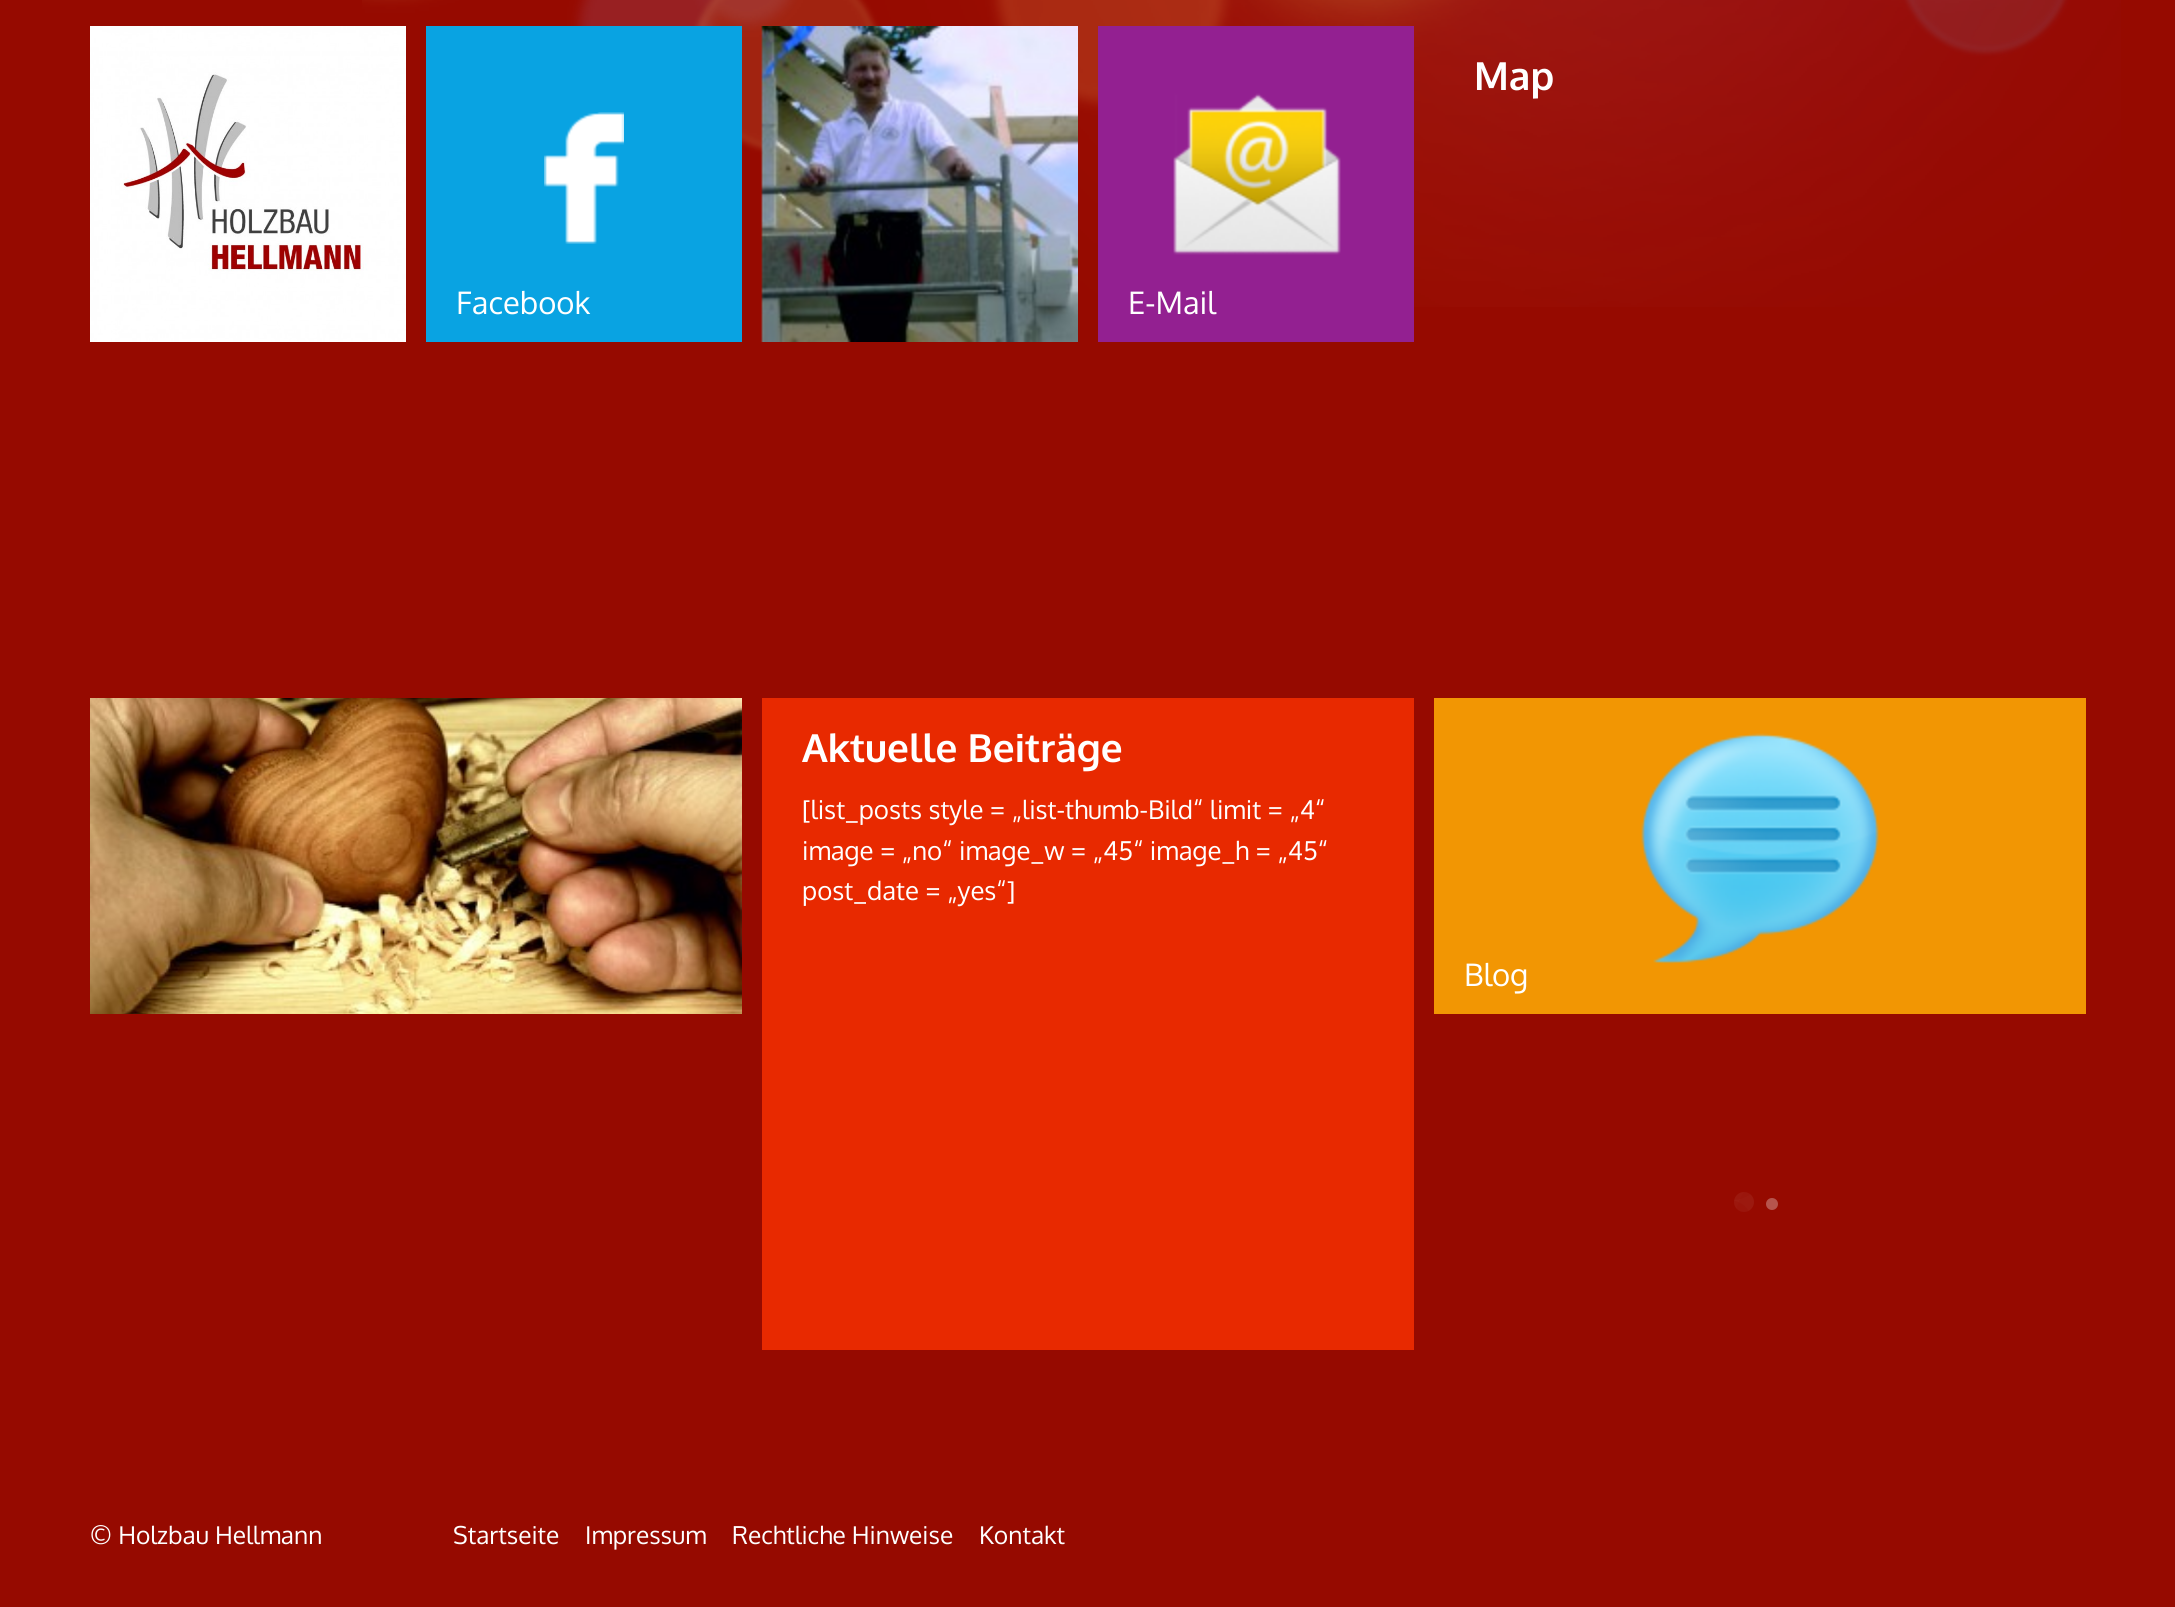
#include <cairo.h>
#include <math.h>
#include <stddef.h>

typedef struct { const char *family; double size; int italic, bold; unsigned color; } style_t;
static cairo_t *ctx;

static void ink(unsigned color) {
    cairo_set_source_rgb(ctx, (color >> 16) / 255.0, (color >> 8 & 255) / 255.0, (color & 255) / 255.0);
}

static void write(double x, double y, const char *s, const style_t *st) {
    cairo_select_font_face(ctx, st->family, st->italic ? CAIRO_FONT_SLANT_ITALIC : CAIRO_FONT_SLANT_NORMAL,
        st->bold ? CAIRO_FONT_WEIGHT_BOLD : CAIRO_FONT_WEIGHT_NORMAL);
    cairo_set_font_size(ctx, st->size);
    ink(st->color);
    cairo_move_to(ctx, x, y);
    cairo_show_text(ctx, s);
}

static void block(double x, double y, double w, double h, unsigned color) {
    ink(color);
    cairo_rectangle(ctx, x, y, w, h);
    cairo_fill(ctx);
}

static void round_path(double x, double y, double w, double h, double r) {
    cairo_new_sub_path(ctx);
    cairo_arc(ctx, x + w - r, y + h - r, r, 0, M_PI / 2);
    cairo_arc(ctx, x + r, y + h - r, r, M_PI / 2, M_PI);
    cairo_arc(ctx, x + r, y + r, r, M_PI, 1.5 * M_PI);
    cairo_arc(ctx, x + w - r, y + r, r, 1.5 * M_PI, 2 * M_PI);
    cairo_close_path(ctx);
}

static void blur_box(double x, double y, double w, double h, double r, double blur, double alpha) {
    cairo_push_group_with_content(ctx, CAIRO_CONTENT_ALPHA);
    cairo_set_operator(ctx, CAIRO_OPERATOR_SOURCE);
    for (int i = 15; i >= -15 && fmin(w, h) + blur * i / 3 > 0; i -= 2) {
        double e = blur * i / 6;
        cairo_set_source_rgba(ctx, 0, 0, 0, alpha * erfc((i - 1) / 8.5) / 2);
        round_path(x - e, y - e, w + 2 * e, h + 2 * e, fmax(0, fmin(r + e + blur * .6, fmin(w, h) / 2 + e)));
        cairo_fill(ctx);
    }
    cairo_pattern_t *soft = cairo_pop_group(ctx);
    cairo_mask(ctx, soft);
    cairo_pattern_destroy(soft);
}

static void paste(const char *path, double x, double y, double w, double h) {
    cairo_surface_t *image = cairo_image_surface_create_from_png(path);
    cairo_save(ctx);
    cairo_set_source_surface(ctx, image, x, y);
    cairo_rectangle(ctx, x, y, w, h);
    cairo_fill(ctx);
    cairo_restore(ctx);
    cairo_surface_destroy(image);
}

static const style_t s1 = {"Oxygen", 38.75, 0, 1, 0xffffff};
static const style_t s2 = {"Oxygen", 31, 0, 0, 0xffffff};
static const style_t s3 = {"Oxygen", 25.8, 0, 0, 0xffffff};
static const style_t s4 = {"Oxygen", 24.5, 0, 0, 0xffffff};

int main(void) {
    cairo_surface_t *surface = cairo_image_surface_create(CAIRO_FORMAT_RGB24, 2175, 1607);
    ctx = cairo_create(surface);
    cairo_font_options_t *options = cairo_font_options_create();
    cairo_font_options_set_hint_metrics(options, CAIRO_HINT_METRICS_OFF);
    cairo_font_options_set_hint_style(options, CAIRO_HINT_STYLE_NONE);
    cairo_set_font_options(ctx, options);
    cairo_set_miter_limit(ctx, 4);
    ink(0x960a00);
    cairo_paint(ctx);
    paste("pic1.png", 362, 0, 1759, 307);
    paste("pic2.png", 90, 26, 316, 316);
    paste("pic3.png", 761, 26, 317, 316);
    write(1474, 90, "Map", &s1);
    block(426, 26, 316, 316, 0x09a3e2);
    paste("pic4.png", 544, 112, 80, 132);
    write(456, 314, "Facebook", &s2);
    block(1098, 26, 316, 316, 0x932091);
    paste("pic5.png", 1173, 93, 168, 162);
    write(1128, 314, "E-Mail", &s2);
    paste("pic6.png", 90, 698, 652, 316);
    block(762, 698, 652, 652, 0xe82900);
    write(802, 762, "Aktuelle Beiträge", &s1);
    write(802, 819, "[list_posts style = „list-thumb-Bild“ limit = „4“", &s3);
    write(802, 860, "image = „no“ image_w = „45“ image_h = „45“", &s3);
    write(802, 900, "post_date = „yes“]", &s3);
    block(1434, 698, 652, 316, 0xf29603);
    paste("pic7.png", 1641, 733, 238, 231);
    write(1464, 986, "Blog", &s2);
    ink(0xb6544d);
    cairo_new_path(ctx);
    cairo_arc(ctx, 1744, 1202, 10, 0, 2 * M_PI);
    cairo_fill(ctx);
    cairo_save(ctx);
    cairo_rectangle(ctx, 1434, 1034, 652, 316);
    cairo_clip(ctx);
    ink(0x960a00);
    blur_box(1598, 1114, 162, 78, 0, 50, 1);
    blur_box(1598, 1192, 162, 78, 0, 50, 1);
    blur_box(1760, 1192, 164, 78, 0, 50, 1);
    cairo_restore(ctx);
    cairo_arc(ctx, 1772, 1204, 6, 0, 2 * M_PI);
    cairo_fill(ctx);
    write(90, 1544, "© Holzbau Hellmann", &s4);
    write(453, 1544, "Startseite", &s4);
    write(585, 1544, "Impressum", &s4);
    write(732, 1544, "Rechtliche Hinweise", &s4);
    write(979, 1544, "Kontakt", &s4);
    cairo_surface_write_to_png(surface, "screenshot.png");
    cairo_font_options_destroy(options);
    cairo_destroy(ctx);
    cairo_surface_destroy(surface);
    return 0;
}
